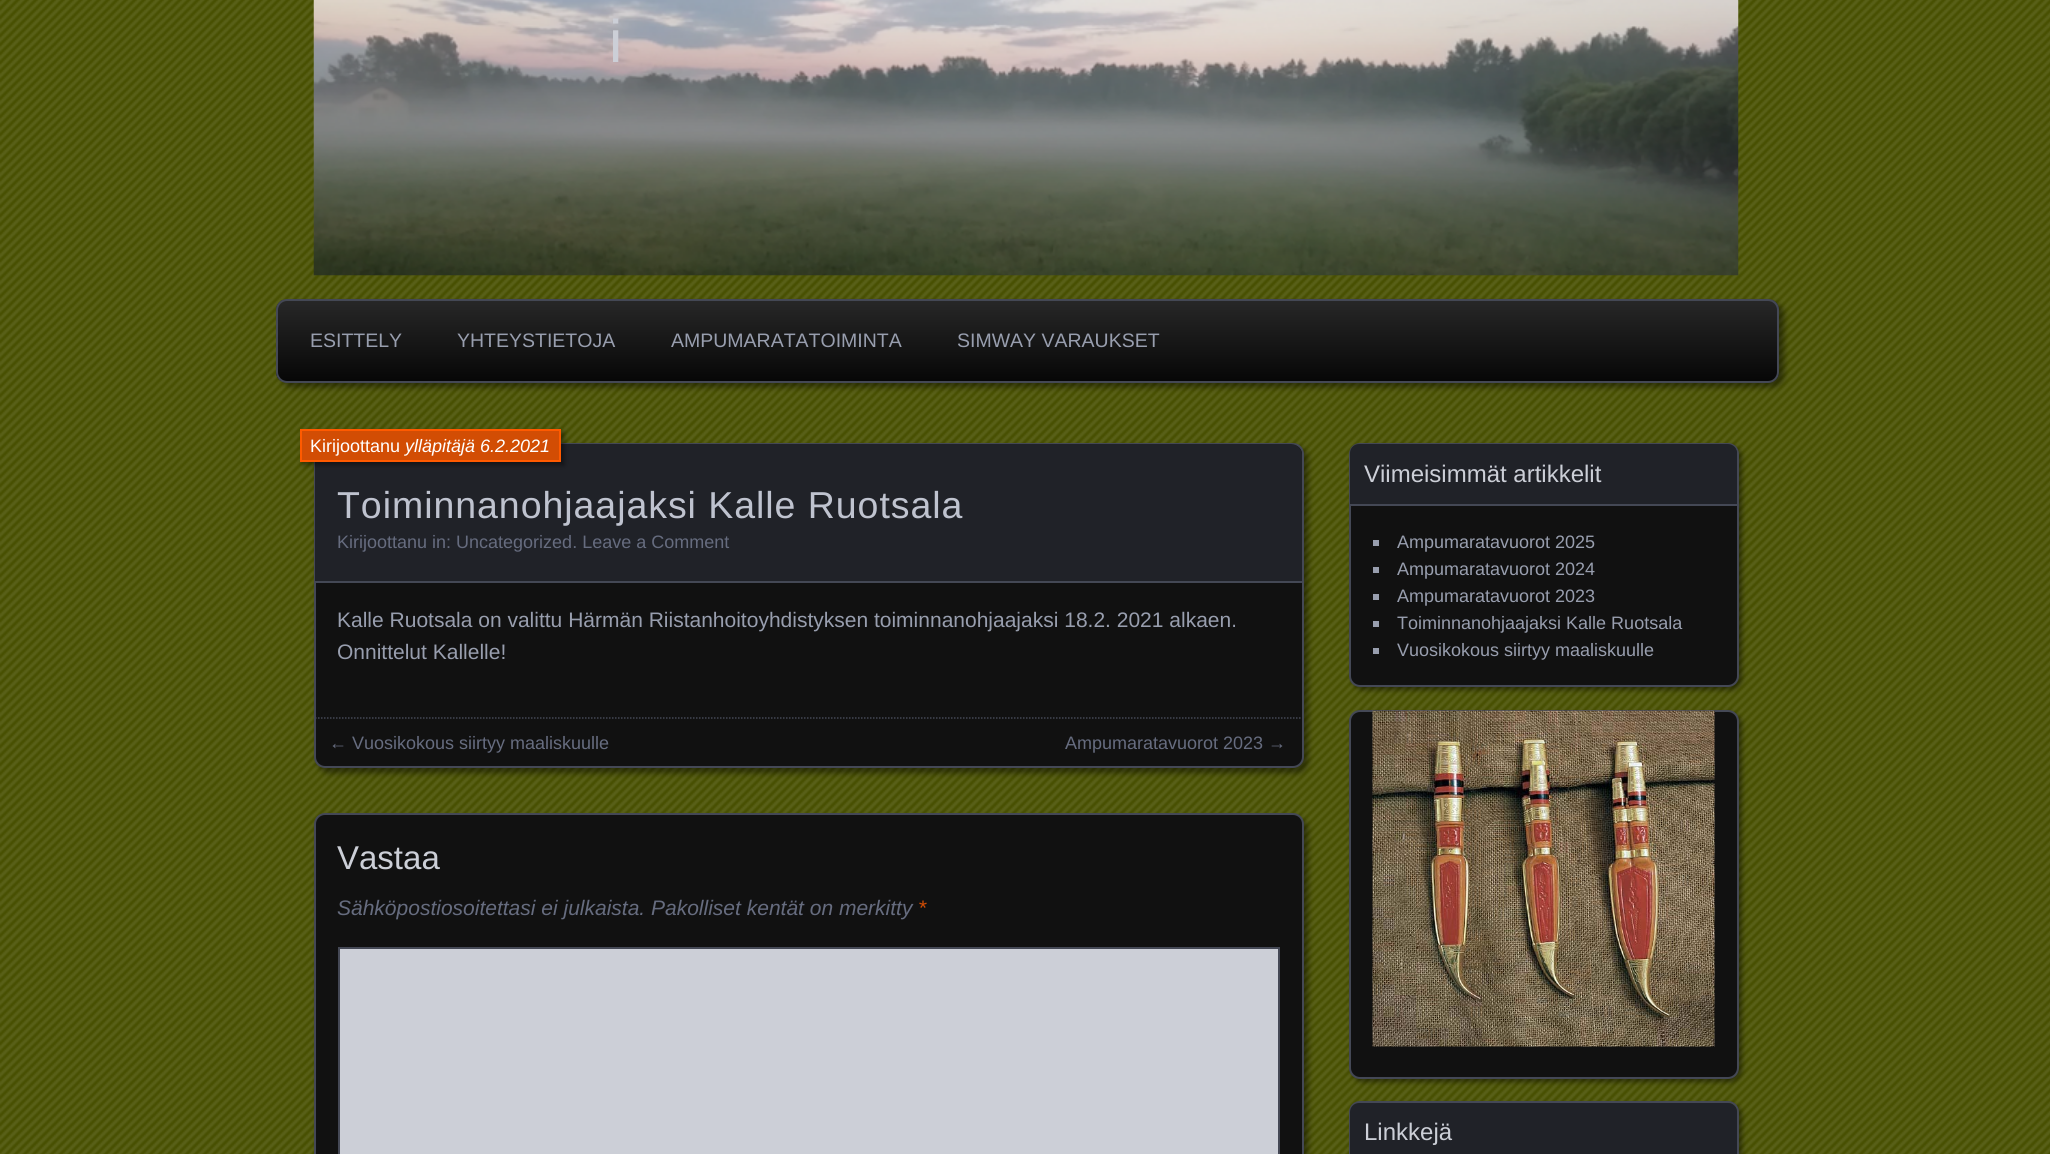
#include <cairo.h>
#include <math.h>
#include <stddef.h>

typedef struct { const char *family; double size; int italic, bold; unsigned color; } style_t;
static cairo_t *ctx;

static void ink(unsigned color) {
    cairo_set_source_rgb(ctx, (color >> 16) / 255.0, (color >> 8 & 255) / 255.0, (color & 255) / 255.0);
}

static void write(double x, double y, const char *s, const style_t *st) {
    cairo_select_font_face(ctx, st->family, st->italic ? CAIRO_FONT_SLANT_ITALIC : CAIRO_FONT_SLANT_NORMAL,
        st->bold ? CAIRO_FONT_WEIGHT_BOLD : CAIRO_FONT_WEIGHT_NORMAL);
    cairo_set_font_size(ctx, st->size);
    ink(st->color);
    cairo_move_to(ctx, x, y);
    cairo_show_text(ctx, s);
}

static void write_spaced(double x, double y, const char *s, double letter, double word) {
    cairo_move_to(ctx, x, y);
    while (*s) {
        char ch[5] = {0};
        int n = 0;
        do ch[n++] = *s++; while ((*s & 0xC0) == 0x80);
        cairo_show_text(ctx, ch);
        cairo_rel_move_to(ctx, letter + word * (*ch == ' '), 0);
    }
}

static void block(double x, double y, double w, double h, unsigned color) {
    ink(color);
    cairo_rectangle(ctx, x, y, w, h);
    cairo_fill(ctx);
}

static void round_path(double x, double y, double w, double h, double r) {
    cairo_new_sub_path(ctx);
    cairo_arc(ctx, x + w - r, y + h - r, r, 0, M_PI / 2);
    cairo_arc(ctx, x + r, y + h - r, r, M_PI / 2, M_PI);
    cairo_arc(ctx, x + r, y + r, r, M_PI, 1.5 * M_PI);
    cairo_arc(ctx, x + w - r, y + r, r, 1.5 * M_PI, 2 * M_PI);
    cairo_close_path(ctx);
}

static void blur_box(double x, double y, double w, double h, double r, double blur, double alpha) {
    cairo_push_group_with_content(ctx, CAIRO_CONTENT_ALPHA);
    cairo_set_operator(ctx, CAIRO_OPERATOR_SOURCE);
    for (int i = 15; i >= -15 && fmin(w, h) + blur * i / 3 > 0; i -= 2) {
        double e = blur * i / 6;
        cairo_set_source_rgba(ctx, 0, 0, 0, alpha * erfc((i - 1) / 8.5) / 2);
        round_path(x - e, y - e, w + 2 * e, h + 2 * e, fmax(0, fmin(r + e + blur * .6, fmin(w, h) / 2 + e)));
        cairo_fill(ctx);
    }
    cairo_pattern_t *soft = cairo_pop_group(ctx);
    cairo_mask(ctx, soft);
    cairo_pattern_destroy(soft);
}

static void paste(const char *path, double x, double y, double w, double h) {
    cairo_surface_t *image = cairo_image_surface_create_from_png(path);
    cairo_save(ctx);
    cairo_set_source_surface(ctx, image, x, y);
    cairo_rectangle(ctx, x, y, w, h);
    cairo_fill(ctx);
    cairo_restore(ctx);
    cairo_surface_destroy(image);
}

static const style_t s1 = {"Liberation Sans", 60, 0, 0, 0xcccfd7};
static const style_t s2 = {"Liberation Sans", 19.5, 0, 0, 0x989eae};
static const style_t s3 = {"Liberation Sans", 18, 0, 0, 0xffffff};
static const style_t s4 = {"Liberation Sans", 18, 1, 0, 0xffffff};
static const style_t s5 = {"Liberation Sans", 18, 0, 0, 0x666c7f};
static const style_t s6 = {"Liberation Sans", 21, 0, 0, 0x989eae};
static const style_t s7 = {"Liberation Sans", 33, 0, 0, 0xcccfd7};
static const style_t s8 = {"Liberation Sans", 21, 1, 0, 0x666c7f};
static const style_t s9 = {"Liberation Sans", 21, 1, 0, 0xd24d04};
static const style_t s10 = {"Liberation Sans", 24, 0, 0, 0xcccfd7};
static const style_t s11 = {"Liberation Sans", 18, 0, 0, 0x989eae};

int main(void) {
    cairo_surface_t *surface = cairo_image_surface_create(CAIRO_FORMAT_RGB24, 2050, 1154);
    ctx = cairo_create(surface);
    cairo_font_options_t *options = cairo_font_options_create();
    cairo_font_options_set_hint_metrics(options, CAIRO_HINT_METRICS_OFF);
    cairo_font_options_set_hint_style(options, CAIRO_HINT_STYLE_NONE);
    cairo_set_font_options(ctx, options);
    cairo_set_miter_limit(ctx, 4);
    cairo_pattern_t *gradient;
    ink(0x474f00);
    cairo_paint(ctx);
    paste("pic1.png", 0, 0, 2050, 1154);
    paste("pic2.png", 313, 0, 1426, 276);
    write(609, 62, "i", &s1);
    ink(0x000000);
    blur_box(281, 303, 1503, 84, 11, 3, 0.45);
    cairo_save(ctx);
    round_path(276, 299, 1503, 84, 11);
    cairo_clip(ctx);
    gradient = cairo_pattern_create_linear(1028, 300, 1028, 381);
    cairo_pattern_add_color_stop_rgba(gradient, 0.01, 0.153, 0.153, 0.153, 1);
    cairo_pattern_add_color_stop_rgba(gradient, 1, 0.027, 0.027, 0.027, 1);
    cairo_set_source(ctx, gradient);
    cairo_pattern_destroy(gradient);
    cairo_rectangle(ctx, 276, 300, 1503, 81);
    cairo_fill(ctx);
    cairo_restore(ctx);
    round_path(277, 300, 1501, 82, 10);
    ink(0x444855);
    cairo_stroke(ctx);
    write(310, 347, "ESITTELY", &s2);
    write(457, 347, "YHTEYSTIETOJA", &s2);
    write(671, 347, "AMPUMARATATOIMINTA", &s2);
    write(957, 347, "SIMWAY VARAUKSET", &s2);
    ink(0x000000);
    blur_box(318, 447, 990, 326, 11, 3, 0.45);
    ink(0x111111);
    round_path(315, 444, 988, 323, 10);
    cairo_fill_preserve(ctx);
    ink(0x444855);
    cairo_stroke(ctx);
    ink(0x202228);
    cairo_new_path(ctx);
    cairo_move_to(ctx, 326, 444);
    cairo_line_to(ctx, 1291, 444);
    cairo_curve_to(ctx, 1297, 444, 1302, 449, 1302, 455);
    cairo_line_to(ctx, 1302, 582);
    cairo_line_to(ctx, 315, 582);
    cairo_line_to(ctx, 315, 455);
    cairo_curve_to(ctx, 315, 449, 320, 444, 326, 444);
    cairo_close_path(ctx);
    cairo_fill(ctx);
    block(315, 581, 987, 2, 0x444855);
    ink(0x000000);
    blur_box(303, 432, 261, 33, 0, 2.5, 0.45);
    ink(0xd24d04);
    cairo_rectangle(ctx, 301, 430, 259, 31);
    cairo_fill_preserve(ctx);
    ink(0xff5a00);
    cairo_stroke(ctx);
    write(310, 452, "Kirijoottanu", &s3);
    write(405, 452, "ylläpitäjä 6.2.2021", &s4);
    cairo_select_font_face(ctx, "Liberation Sans", CAIRO_FONT_SLANT_NORMAL, CAIRO_FONT_WEIGHT_NORMAL);
    cairo_set_font_size(ctx, 37.5);
    ink(0xbfc3cf);
    write_spaced(337, 518, "Toiminnanohjaajaksi Kalle Ruotsala", 0.95, 0);
    write(337, 548, "Kirijoottanu in: Uncategorized. Leave a Comment", &s5);
    write(337, 627, "Kalle Ruotsala on valittu Härmän Riistanhoitoyhdistyksen toiminnanohjaajaksi 18.2. 2021 alkaen.", &s6);
    write(337, 659, "Onnittelut Kallelle!", &s6);
    cairo_new_path(ctx);
    cairo_move_to(ctx, 315, 718);
    cairo_line_to(ctx, 1302, 718);
    ink(0x444855);
    cairo_set_line_width(ctx, 1.5);
    cairo_set_dash(ctx, (double[]){1.5, 1.5}, 2, 0);
    cairo_stroke(ctx);
    write(329, 749, "← Vuosikokous siirtyy maaliskuulle", &s5);
    write(1065, 749, "Ampumaratavuorot 2023 →", &s5);
    ink(0x000000);
    blur_box(318, 818, 990, 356, 11, 3, 0.45);
    ink(0x111111);
    round_path(315, 814, 988, 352, 10);
    cairo_fill_preserve(ctx);
    ink(0x444855);
    cairo_set_line_width(ctx, 2);
    cairo_set_dash(ctx, NULL, 0, 0);
    cairo_stroke(ctx);
    write(337, 869, "Vastaa", &s7);
    write(337, 915, "Sähköpostiosoitettasi ei julkaista. Pakolliset kentät on merkitty", &s8);
    write(918, 915, "*", &s9);
    ink(0xcccfd7);
    cairo_rectangle(ctx, 339, 948, 940, 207);
    cairo_fill_preserve(ctx);
    ink(0x444855);
    cairo_stroke(ctx);
    ink(0x000000);
    blur_box(1352, 446, 390, 244, 11, 2.5, 0.45);
    ink(0x111111);
    round_path(1350, 444, 388, 242, 10);
    cairo_fill_preserve(ctx);
    ink(0x444855);
    cairo_stroke(ctx);
    ink(0x202228);
    cairo_new_path(ctx);
    cairo_move_to(ctx, 1359, 444);
    cairo_line_to(ctx, 1728, 444);
    cairo_curve_to(ctx, 1733, 444, 1737, 448, 1737, 453);
    cairo_line_to(ctx, 1737, 506);
    cairo_line_to(ctx, 1350, 506);
    cairo_line_to(ctx, 1350, 453);
    cairo_curve_to(ctx, 1350, 448, 1354, 444, 1359, 444);
    cairo_close_path(ctx);
    cairo_fill(ctx);
    block(1350, 504, 387, 2, 0x444855);
    write(1364, 482, "Viimeisimmät artikkelit", &s10);
    block(1373, 540, 6, 6, 0x989eae);
    write(1397, 548, "Ampumaratavuorot 2025", &s11);
    block(1373, 567, 6, 6, 0x989eae);
    write(1397, 575, "Ampumaratavuorot 2024", &s11);
    block(1373, 594, 6, 6, 0x989eae);
    write(1397, 602, "Ampumaratavuorot 2023", &s11);
    block(1373, 621, 6, 6, 0x989eae);
    write(1397, 629, "Toiminnanohjaajaksi Kalle Ruotsala", &s11);
    block(1373, 648, 6, 6, 0x989eae);
    write(1397, 656, "Vuosikokous siirtyy maaliskuulle", &s11);
    ink(0x000000);
    blur_box(1352, 713, 390, 369, 11, 2.5, 0.45);
    ink(0x111111);
    round_path(1350, 711, 388, 367, 10);
    cairo_fill_preserve(ctx);
    ink(0x444855);
    cairo_stroke(ctx);
    paste("pic3.png", 1372, 710, 343, 337);
    ink(0x000000);
    blur_box(1352, 1104, 390, 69, 11, 2.5, 0.45);
    round_path(1350, 1102, 388, 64, 10);
    ink(0x444855);
    cairo_stroke(ctx);
    ink(0x202228);
    cairo_new_path(ctx);
    cairo_move_to(ctx, 1359, 1103);
    cairo_line_to(ctx, 1728, 1103);
    cairo_curve_to(ctx, 1733, 1103, 1737, 1107, 1737, 1112);
    cairo_line_to(ctx, 1737, 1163);
    cairo_line_to(ctx, 1350, 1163);
    cairo_line_to(ctx, 1350, 1112);
    cairo_curve_to(ctx, 1350, 1107, 1354, 1103, 1359, 1103);
    cairo_close_path(ctx);
    cairo_fill(ctx);
    write(1364, 1140, "Linkkejä", &s10);
    cairo_surface_write_to_png(surface, "screenshot.png");
    cairo_font_options_destroy(options);
    cairo_destroy(ctx);
    cairo_surface_destroy(surface);
    return 0;
}
